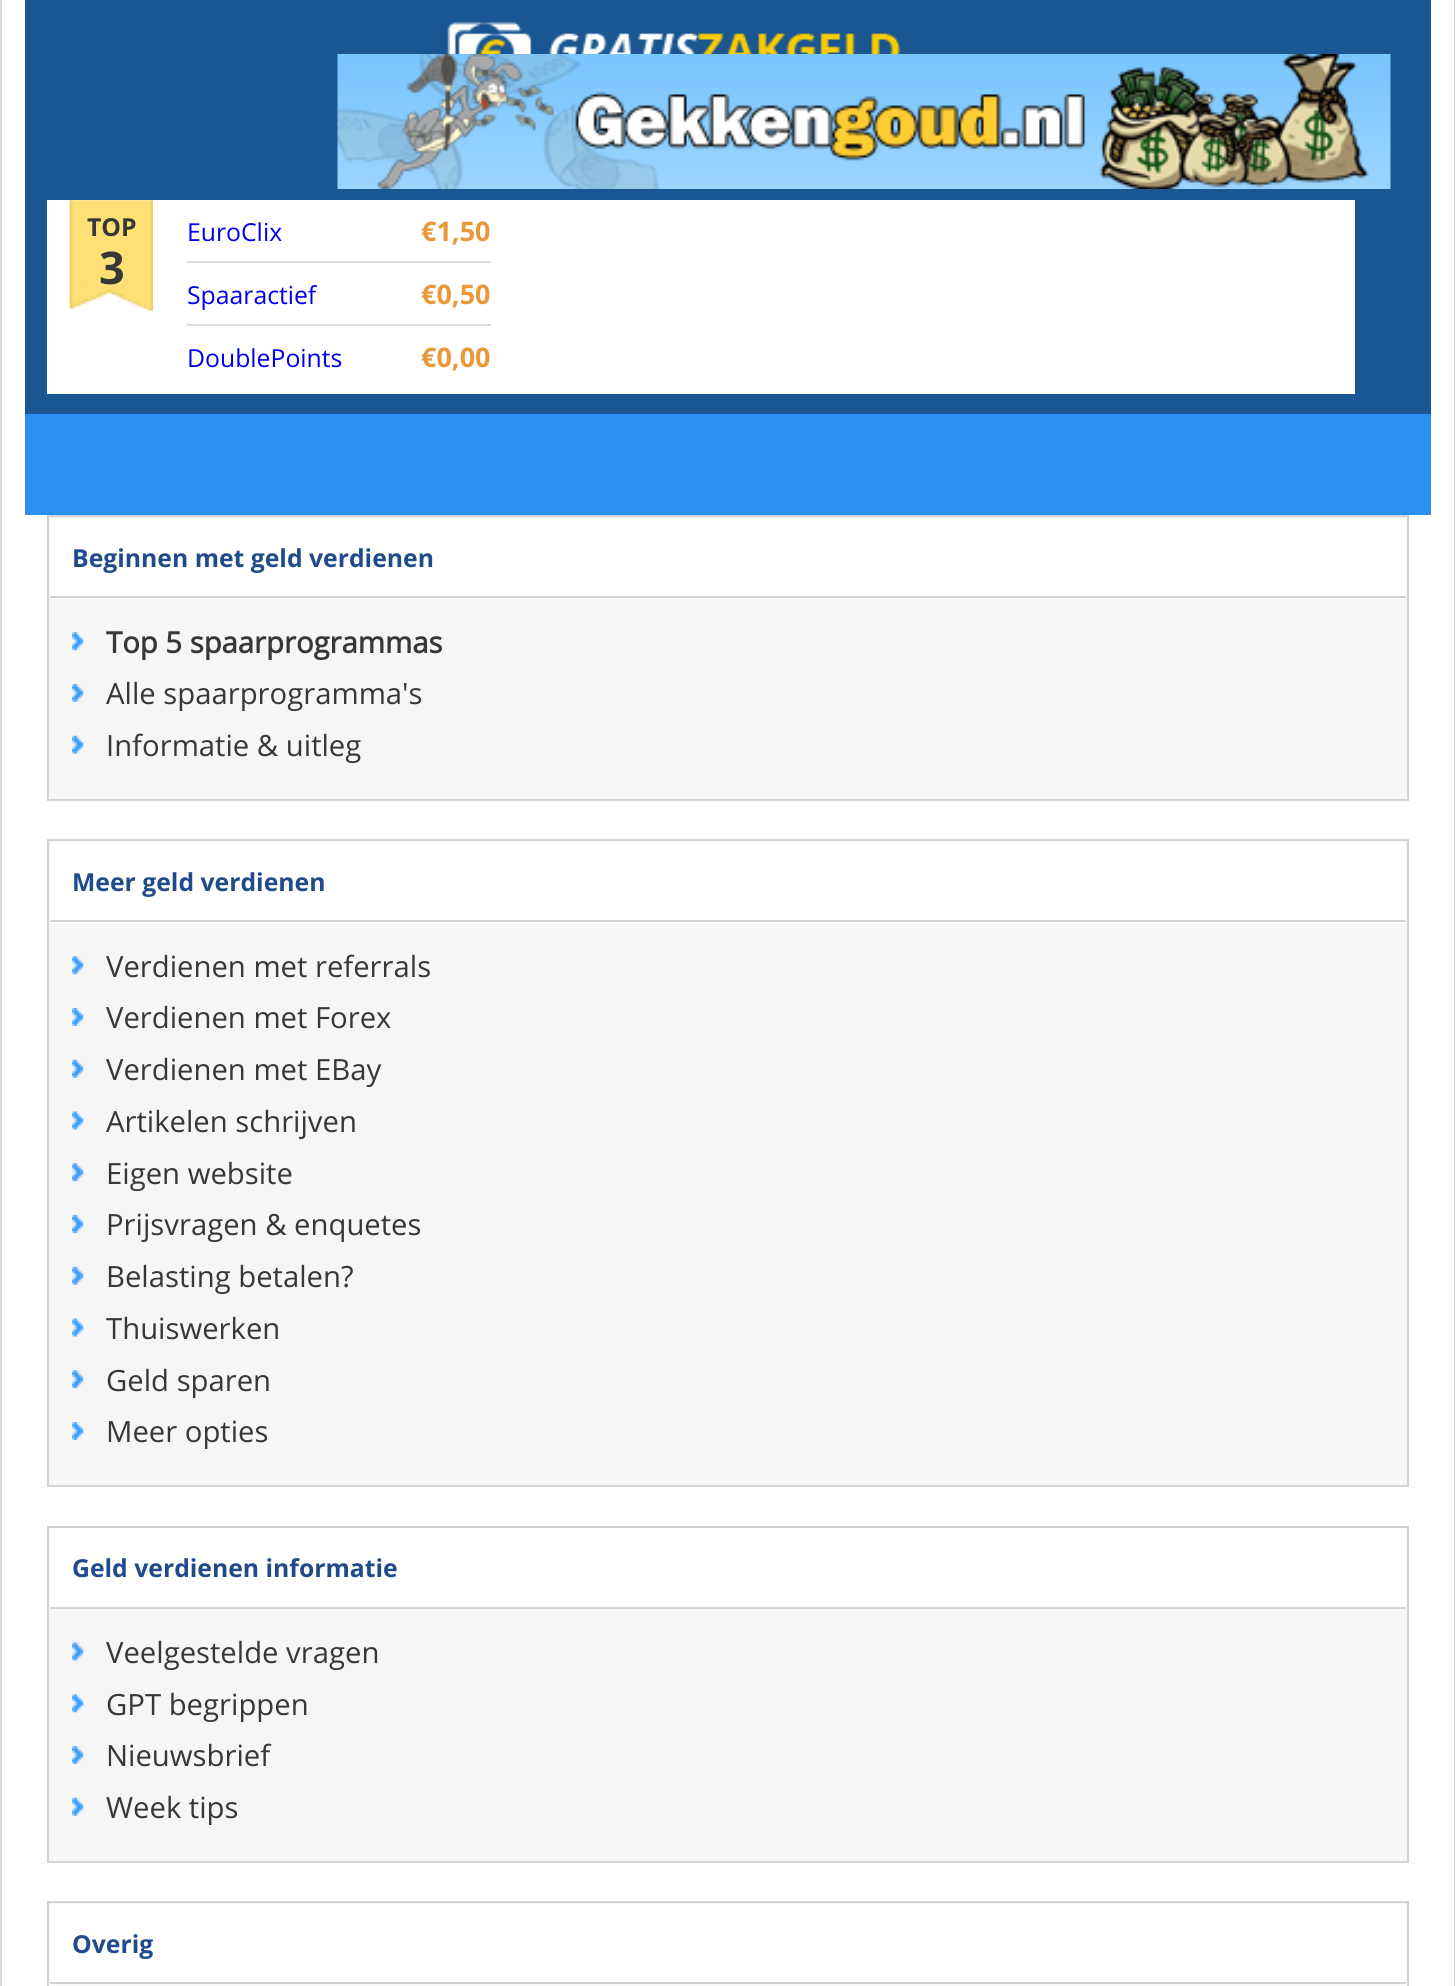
#include <cairo.h>
#include <math.h>
#include <stddef.h>

typedef struct { const char *family; double size; int italic, bold; unsigned color; } style_t;
static cairo_t *ctx;

static void ink(unsigned color) {
    cairo_set_source_rgb(ctx, (color >> 16) / 255.0, (color >> 8 & 255) / 255.0, (color & 255) / 255.0);
}

static void write(double x, double y, const char *s, const style_t *st) {
    cairo_select_font_face(ctx, st->family, st->italic ? CAIRO_FONT_SLANT_ITALIC : CAIRO_FONT_SLANT_NORMAL,
        st->bold ? CAIRO_FONT_WEIGHT_BOLD : CAIRO_FONT_WEIGHT_NORMAL);
    cairo_set_font_size(ctx, st->size);
    ink(st->color);
    cairo_move_to(ctx, x, y);
    cairo_show_text(ctx, s);
}

static void block(double x, double y, double w, double h, unsigned color) {
    ink(color);
    cairo_rectangle(ctx, x, y, w, h);
    cairo_fill(ctx);
}

static void paste(const char *path, double x, double y, double w, double h) {
    cairo_surface_t *image = cairo_image_surface_create_from_png(path);
    cairo_save(ctx);
    cairo_set_source_surface(ctx, image, x, y);
    cairo_rectangle(ctx, x, y, w, h);
    cairo_fill(ctx);
    cairo_restore(ctx);
    cairo_surface_destroy(image);
}

static const style_t s1 = {"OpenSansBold", 24.75, 0, 1, 0x373737};
static const style_t s2 = {"OpenSansBold", 45, 0, 1, 0x373737};
static const style_t s3 = {"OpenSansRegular", 24.75, 0, 0, 0x0000ee};
static const style_t s4 = {"OpenSansBold", 27, 0, 1, 0xe9993a};
static const style_t s5 = {"OpenSansBold", 24.75, 0, 1, 0x204b8b};
static const style_t s6 = {"OpenSansRegular", 29.25, 0, 1, 0x373737};
static const style_t s7 = {"OpenSansRegular", 29.25, 0, 0, 0x373737};

int main(void) {
    cairo_surface_t *surface = cairo_image_surface_create(CAIRO_FORMAT_RGB24, 1455, 1986);
    ctx = cairo_create(surface);
    cairo_font_options_t *options = cairo_font_options_create();
    cairo_font_options_set_hint_metrics(options, CAIRO_HINT_METRICS_OFF);
    cairo_font_options_set_hint_style(options, CAIRO_HINT_STYLE_NONE);
    cairo_set_font_options(ctx, options);
    cairo_set_miter_limit(ctx, 4);
    ink(0xffffff);
    cairo_paint(ctx);
    block(1454, 0, 1, 1986, 0xdadada);
    block(0, 0, 2, 1986, 0xdadada);
    block(25, 0, 1406, 414, 0x1a5692);
    paste("pic1.png", 447, 22, 453, 32);
    paste("pic2.png", 337, 54, 1054, 135);
    block(47, 200, 1308, 194, 0xffffff);
    paste("pic3.png", 69, 200, 84, 111);
    write(87, 236, "TOP", &s1);
    write(99, 284, "3", &s2);
    block(187, 261, 304, 2, 0xdcdcdc);
    write(187, 241, "EuroClix", &s3);
    write(421, 241, "€1,50", &s4);
    block(187, 324, 304, 2, 0xdcdcdc);
    write(187, 304, "Spaaractief", &s3);
    write(421, 304, "€0,50", &s4);
    write(187, 367, "DoublePoints", &s3);
    write(421, 367, "€0,00", &s4);
    block(25, 414, 1406, 101, 0x2b90f2);
    ink(0xf6f6f6);
    cairo_rectangle(ctx, 48, 516, 1360, 284);
    cairo_fill_preserve(ctx);
    ink(0xd2d2d2);
    cairo_stroke(ctx);
    block(50, 518, 1356, 81, 0xffffff);
    block(50, 596, 1356, 2, 0xd2d2d2);
    write(72, 567, "Beginnen met geld verdienen", &s5);
    paste("pic4.png", 72, 632, 12, 19);
    write(106, 653, "Top 5 spaarprogrammas", &s6);
    paste("pic5.png", 72, 684, 12, 18);
    write(106, 704, "Alle spaarprogramma's", &s7);
    paste("pic6.png", 72, 735, 12, 19);
    write(106, 756, "Informatie & uitleg", &s7);
    ink(0xf6f6f6);
    cairo_rectangle(ctx, 48, 840, 1360, 646);
    cairo_fill_preserve(ctx);
    ink(0xd2d2d2);
    cairo_stroke(ctx);
    block(50, 842, 1356, 81, 0xffffff);
    block(50, 920, 1356, 2, 0xd2d2d2);
    write(72, 891, "Meer geld verdienen", &s5);
    paste("pic4.png", 72, 956, 12, 19);
    write(106, 977, "Verdienen met referrals", &s7);
    paste("pic5.png", 72, 1008, 12, 18);
    write(106, 1028, "Verdienen met Forex", &s7);
    paste("pic6.png", 72, 1059, 12, 19);
    write(106, 1080, "Verdienen met EBay", &s7);
    paste("pic7.png", 72, 1111, 12, 19);
    write(106, 1132, "Artikelen schrijven", &s7);
    paste("pic4.png", 72, 1163, 12, 19);
    write(106, 1184, "Eigen website", &s7);
    paste("pic5.png", 72, 1215, 12, 18);
    write(106, 1235, "Prijsvragen & enquetes", &s7);
    paste("pic6.png", 72, 1266, 12, 19);
    write(106, 1287, "Belasting betalen?", &s7);
    paste("pic7.png", 72, 1318, 12, 19);
    write(106, 1339, "Thuiswerken", &s7);
    paste("pic4.png", 72, 1370, 12, 19);
    write(106, 1391, "Geld sparen", &s7);
    paste("pic5.png", 72, 1422, 12, 18);
    write(106, 1442, "Meer opties", &s7);
    ink(0xf6f6f6);
    cairo_rectangle(ctx, 48, 1527, 1360, 335);
    cairo_fill_preserve(ctx);
    ink(0xd2d2d2);
    cairo_stroke(ctx);
    block(50, 1528, 1356, 79, 0xffffff);
    block(50, 1607, 1356, 2, 0xd2d2d2);
    write(72, 1577, "Geld verdienen informatie", &s5);
    paste("pic7.png", 72, 1642, 12, 19);
    write(106, 1663, "Veelgestelde vragen", &s7);
    paste("pic4.png", 72, 1694, 12, 19);
    write(106, 1715, "GPT begrippen", &s7);
    paste("pic5.png", 72, 1746, 12, 18);
    write(106, 1766, "Nieuwsbrief", &s7);
    paste("pic6.png", 72, 1797, 12, 19);
    write(106, 1818, "Week tips", &s7);
    ink(0xf6f6f6);
    cairo_rectangle(ctx, 48, 1902, 1360, 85);
    cairo_fill_preserve(ctx);
    ink(0xd2d2d2);
    cairo_stroke(ctx);
    block(50, 1904, 1356, 81, 0xffffff);
    block(50, 1982, 1356, 2, 0xd2d2d2);
    write(72, 1953, "Overig", &s5);
    cairo_surface_write_to_png(surface, "screenshot.png");
    cairo_font_options_destroy(options);
    cairo_destroy(ctx);
    cairo_surface_destroy(surface);
    return 0;
}
